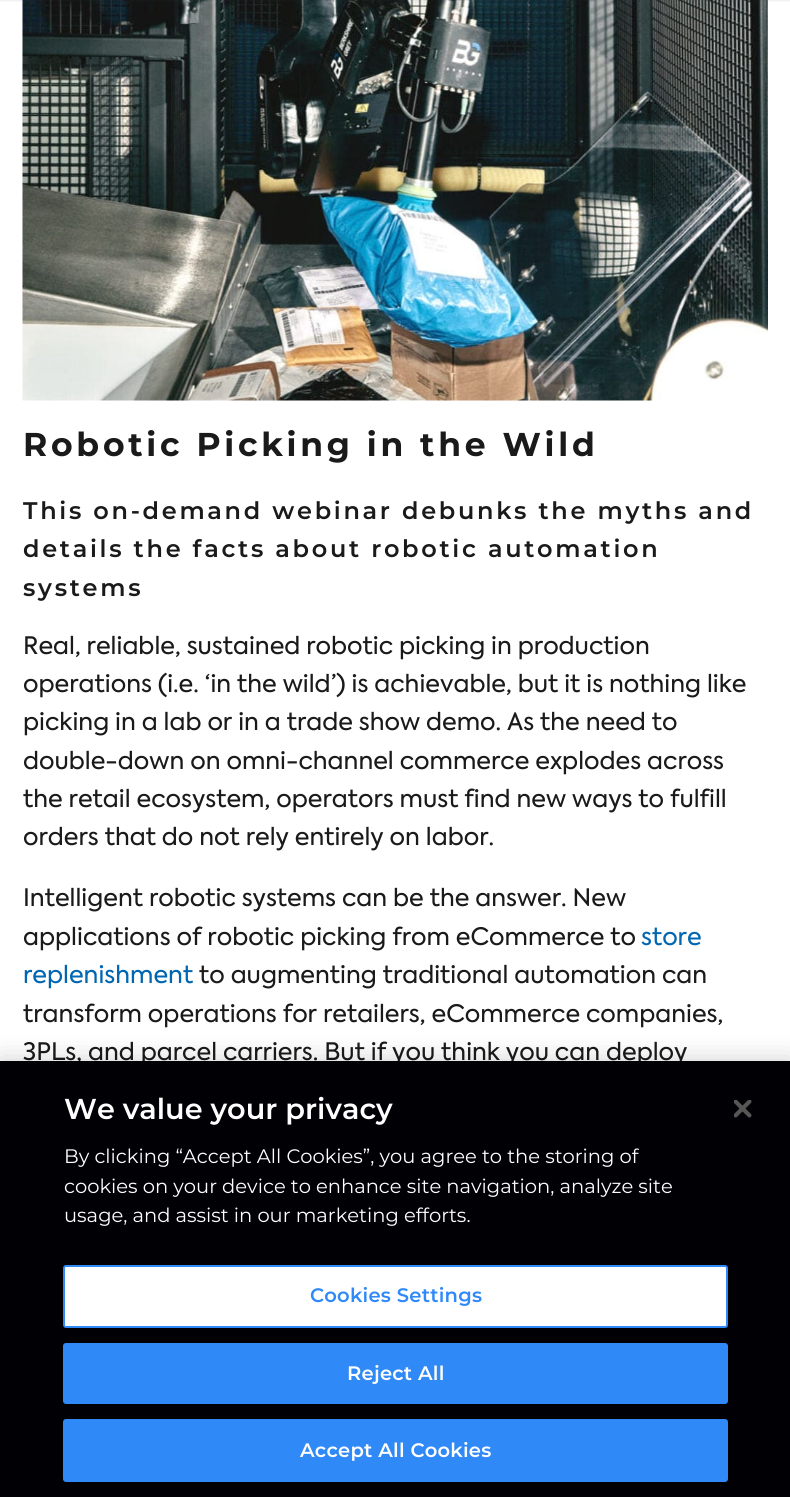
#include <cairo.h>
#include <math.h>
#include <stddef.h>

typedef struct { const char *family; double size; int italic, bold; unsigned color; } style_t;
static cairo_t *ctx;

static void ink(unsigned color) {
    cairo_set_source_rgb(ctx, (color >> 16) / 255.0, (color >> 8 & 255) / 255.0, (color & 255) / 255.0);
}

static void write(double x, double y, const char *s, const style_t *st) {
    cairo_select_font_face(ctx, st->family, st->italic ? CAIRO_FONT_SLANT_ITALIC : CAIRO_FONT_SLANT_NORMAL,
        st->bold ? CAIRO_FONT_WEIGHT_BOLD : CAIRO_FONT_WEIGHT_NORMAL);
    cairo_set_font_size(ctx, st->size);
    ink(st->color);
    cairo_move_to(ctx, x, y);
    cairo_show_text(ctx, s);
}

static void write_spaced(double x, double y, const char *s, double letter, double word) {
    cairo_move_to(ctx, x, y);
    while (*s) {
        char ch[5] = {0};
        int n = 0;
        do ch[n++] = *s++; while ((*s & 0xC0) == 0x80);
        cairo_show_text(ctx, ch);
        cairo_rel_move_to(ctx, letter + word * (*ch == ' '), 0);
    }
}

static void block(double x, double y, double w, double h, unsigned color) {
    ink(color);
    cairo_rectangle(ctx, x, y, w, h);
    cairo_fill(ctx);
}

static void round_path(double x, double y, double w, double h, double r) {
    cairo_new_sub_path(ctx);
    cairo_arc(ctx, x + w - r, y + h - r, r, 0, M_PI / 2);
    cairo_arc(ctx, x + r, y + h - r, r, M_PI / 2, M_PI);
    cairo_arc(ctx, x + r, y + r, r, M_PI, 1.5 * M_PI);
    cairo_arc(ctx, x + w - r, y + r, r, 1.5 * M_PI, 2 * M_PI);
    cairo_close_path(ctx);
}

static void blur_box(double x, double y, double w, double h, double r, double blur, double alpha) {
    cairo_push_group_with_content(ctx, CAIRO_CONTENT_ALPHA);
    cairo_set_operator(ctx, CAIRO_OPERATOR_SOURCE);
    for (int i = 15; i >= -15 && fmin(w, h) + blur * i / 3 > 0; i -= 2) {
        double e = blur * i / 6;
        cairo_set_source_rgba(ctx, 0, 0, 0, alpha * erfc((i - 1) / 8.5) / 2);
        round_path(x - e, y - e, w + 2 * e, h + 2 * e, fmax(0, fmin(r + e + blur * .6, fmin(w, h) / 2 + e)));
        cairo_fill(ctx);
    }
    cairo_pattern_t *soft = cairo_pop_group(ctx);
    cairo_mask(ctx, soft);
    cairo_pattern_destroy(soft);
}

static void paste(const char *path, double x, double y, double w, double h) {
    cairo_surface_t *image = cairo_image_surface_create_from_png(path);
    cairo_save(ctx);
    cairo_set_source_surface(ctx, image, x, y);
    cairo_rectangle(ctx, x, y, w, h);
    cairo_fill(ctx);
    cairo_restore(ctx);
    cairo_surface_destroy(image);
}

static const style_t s1 = {"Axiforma", 24, 0, 0, 0x1a1a1a};
static const style_t s2 = {"Axiforma", 24, 0, 0, 0x0066b2};
static const style_t s3 = {"Montserrat SemiBold", 28.75, 0, 0, 0xffffff};
static const style_t s4 = {"Montserrat", 19.5, 0, 0, 0xffffff};

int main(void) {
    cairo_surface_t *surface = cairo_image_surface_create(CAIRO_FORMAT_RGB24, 790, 1497);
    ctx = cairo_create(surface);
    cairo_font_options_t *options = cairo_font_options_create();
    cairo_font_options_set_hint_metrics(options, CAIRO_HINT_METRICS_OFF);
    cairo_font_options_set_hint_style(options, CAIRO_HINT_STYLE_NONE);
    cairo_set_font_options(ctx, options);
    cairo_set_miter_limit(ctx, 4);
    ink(0xffffff);
    cairo_paint(ctx);
    paste("pic1.png", 22, 0, 746, 401);
    ink(0x384554);
    blur_box(0, -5, 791, 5, 0, 1.5, 0.2);
    cairo_select_font_face(ctx, "Montserrat", CAIRO_FONT_SLANT_NORMAL, CAIRO_FONT_WEIGHT_BOLD);
    cairo_set_font_size(ctx, 33);
    ink(0x1a1a1a);
    write_spaced(23, 456, "Robotic Picking in the Wild", 3.75, 0);
    cairo_select_font_face(ctx, "Montserrat SemiBold", CAIRO_FONT_SLANT_NORMAL, CAIRO_FONT_WEIGHT_NORMAL);
    cairo_set_font_size(ctx, 24);
    write_spaced(23, 519, "This on-demand webinar debunks the myths and", 2.7, 0);
    write_spaced(23, 557, "details the facts about robotic automation", 2.7, 0);
    write_spaced(23, 596, "systems", 2.7, 0);
    write(23, 654, "Real, reliable, sustained robotic picking in production", &s1);
    write(23, 692, "operations (i.e. ‘in the wild’) is achievable, but it is nothing like", &s1);
    write(23, 730, "picking in a lab or in a trade show demo. As the need to", &s1);
    write(23, 769, "double-down on omni-channel commerce explodes across", &s1);
    write(23, 807, "the retail ecosystem, operators must find new ways to fulfill", &s1);
    write(23, 845, "orders that do not rely entirely on labor.", &s1);
    write(23, 906, "Intelligent robotic systems can be the answer. New", &s1);
    write(23, 945, "applications of robotic picking from eCommerce to", &s1);
    write(641, 945, "store", &s2);
    write(23, 983, "replenishment", &s2);
    write(199, 983, "to augmenting traditional automation can", &s1);
    write(23, 1022, "transform operations for retailers, eCommerce companies,", &s1);
    write(23, 1060, "3PLs, and parcel carriers. But if you think you can deploy", &s1);
    ink(0x000000);
    blur_box(0, 1061, 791, 436, 0, 13.5, 0.2);
    block(0, 1061, 790, 436, 0x000005);
    write(64, 1119, "We value your privacy", &s3);
    write(64, 1163, "By clicking “Accept All Cookies”, you agree to the storing of", &s4);
    write(64, 1193, "cookies on your device to enhance site navigation, analyze site", &s4);
    write(64, 1222, "usage, and assist in our marketing efforts.", &s4);
    round_path(64, 1266, 663, 61, 2);
    cairo_fill_preserve(ctx);
    ink(0x2f89f7);
    cairo_stroke(ctx);
    cairo_select_font_face(ctx, "Montserrat SemiBold", CAIRO_FONT_SLANT_NORMAL, CAIRO_FONT_WEIGHT_NORMAL);
    write_spaced(310, 1302, "Cookies Settings", 0.25, 0);
    round_path(64, 1344, 663, 59, 2);
    cairo_fill_preserve(ctx);
    cairo_stroke(ctx);
    ink(0xffffff);
    write_spaced(347, 1380, "Reject All", 0.25, 0);
    ink(0x2f89f7);
    round_path(64, 1420, 663, 61, 2);
    cairo_fill_preserve(ctx);
    cairo_stroke(ctx);
    ink(0xffffff);
    write_spaced(300, 1457, "Accept All Cookies", 0.25, 0);
    paste("pic2.png", 734, 1100, 18, 18);
    cairo_surface_write_to_png(surface, "screenshot.png");
    cairo_font_options_destroy(options);
    cairo_destroy(ctx);
    cairo_surface_destroy(surface);
    return 0;
}
